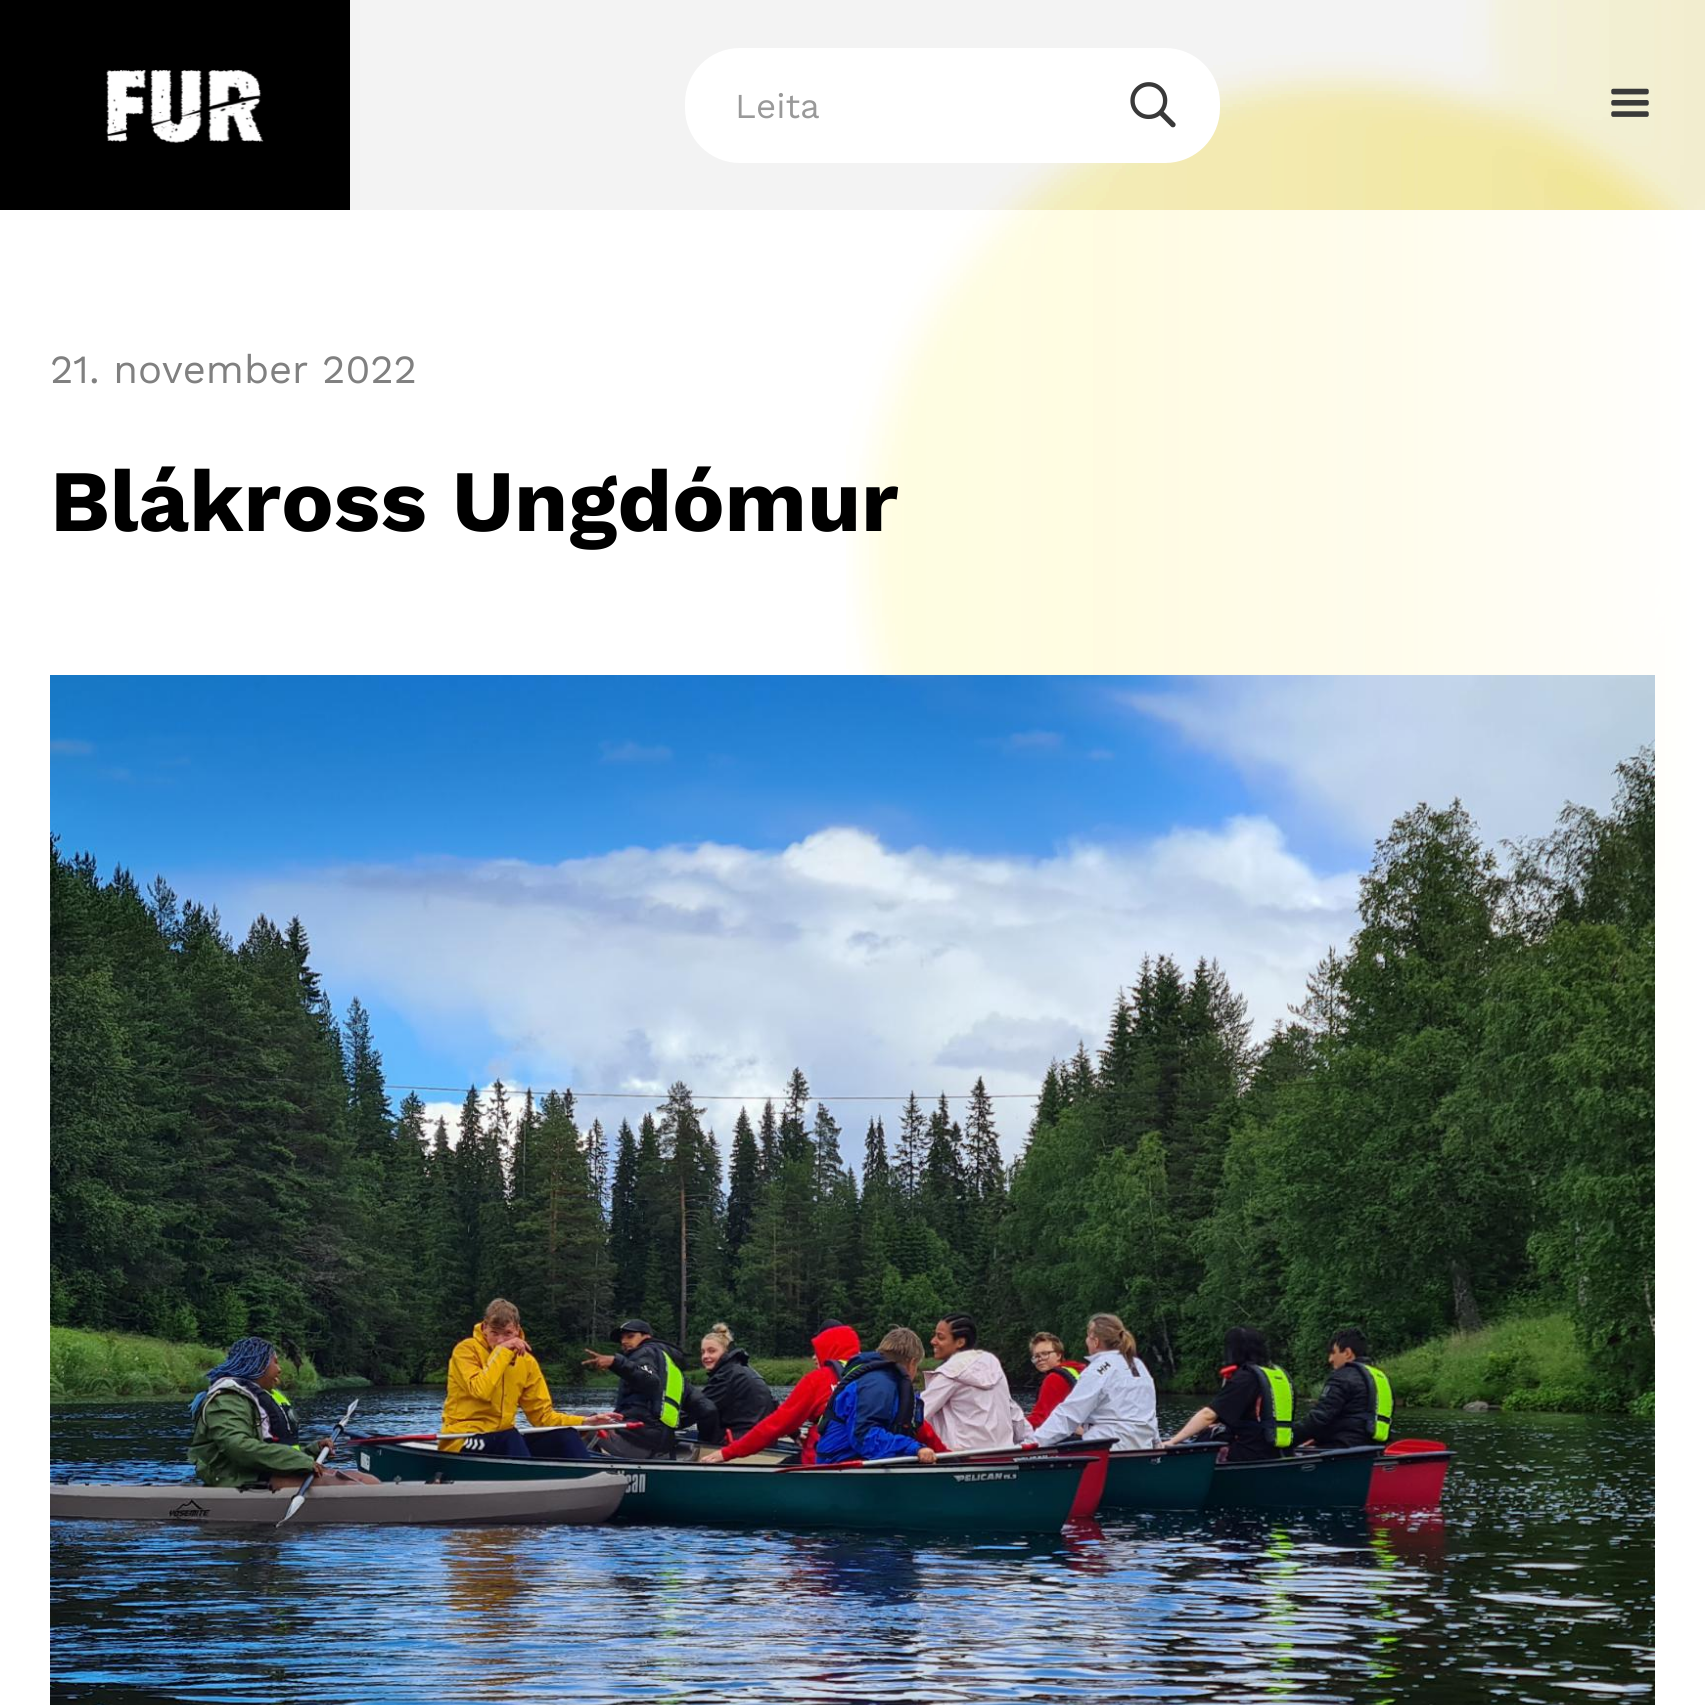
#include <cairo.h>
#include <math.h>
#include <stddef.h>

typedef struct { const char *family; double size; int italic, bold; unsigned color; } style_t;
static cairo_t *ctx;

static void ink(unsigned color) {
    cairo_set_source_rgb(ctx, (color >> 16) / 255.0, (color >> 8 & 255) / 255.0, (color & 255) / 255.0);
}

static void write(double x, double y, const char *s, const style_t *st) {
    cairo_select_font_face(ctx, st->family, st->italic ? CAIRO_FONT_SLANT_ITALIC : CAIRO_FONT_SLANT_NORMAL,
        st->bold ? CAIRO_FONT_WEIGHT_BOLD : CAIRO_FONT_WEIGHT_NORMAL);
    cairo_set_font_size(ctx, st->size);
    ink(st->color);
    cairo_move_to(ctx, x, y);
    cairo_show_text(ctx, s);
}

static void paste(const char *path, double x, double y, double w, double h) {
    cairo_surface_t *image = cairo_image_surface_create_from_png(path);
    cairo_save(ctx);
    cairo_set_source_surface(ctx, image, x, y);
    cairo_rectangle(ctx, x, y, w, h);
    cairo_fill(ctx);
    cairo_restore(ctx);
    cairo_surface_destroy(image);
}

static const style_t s1 = {"Work Sans", 35, 0, 0, 0x999999};
static const style_t s2 = {"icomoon", 60, 0, 0, 0x393939};
static const style_t s3 = {"Work Sans", 40, 0, 0, 0x808080};
static const style_t s4 = {"Work Sans", 87.5, 0, 1, 0x000000};

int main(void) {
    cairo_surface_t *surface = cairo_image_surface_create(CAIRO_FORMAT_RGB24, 1705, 1705);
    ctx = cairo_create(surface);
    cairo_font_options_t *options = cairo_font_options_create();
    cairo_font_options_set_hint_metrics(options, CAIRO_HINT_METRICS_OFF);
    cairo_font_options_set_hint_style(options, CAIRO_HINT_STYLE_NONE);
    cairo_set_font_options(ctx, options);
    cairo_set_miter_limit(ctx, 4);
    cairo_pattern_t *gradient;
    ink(0xffffff);
    cairo_paint(ctx);
    paste("pic1.png", 846, 0, 859, 1374);
    cairo_set_source_rgba(ctx, 0, 0, 0, 0.05);
    cairo_rectangle(ctx, 350, 0, 1355, 210);
    cairo_fill(ctx);
    paste("pic2.png", 0, 0, 350, 210);
    ink(0xffffff);
    cairo_new_path(ctx);
    cairo_move_to(ctx, 740, 48);
    cairo_line_to(ctx, 1085, 48);
    cairo_line_to(ctx, 1085, 163);
    cairo_line_to(ctx, 740, 163);
    cairo_curve_to(ctx, 709.5, 163, 685, 138.5, 685, 108);
    cairo_line_to(ctx, 685, 103);
    cairo_curve_to(ctx, 685, 72.5, 709.5, 48, 740, 48);
    cairo_close_path(ctx);
    cairo_fill(ctx);
    write(735, 118, "Leita", &s1);
    ink(0xffffff);
    cairo_new_path(ctx);
    cairo_move_to(ctx, 1085, 48);
    cairo_line_to(ctx, 1165, 48);
    cairo_curve_to(ctx, 1195.5, 48, 1220, 72.5, 1220, 103);
    cairo_line_to(ctx, 1220, 108);
    cairo_curve_to(ctx, 1220, 138.5, 1195.5, 163, 1165, 163);
    cairo_line_to(ctx, 1085, 163);
    cairo_close_path(ctx);
    cairo_fill(ctx);
    write(1123, 131, "s", &s2);
    paste("pic3.png", 1611, 88, 38, 29);
    gradient = cairo_pattern_create_linear(0, 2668, 1705, 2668);
    cairo_pattern_add_color_stop_rgba(gradient, 0.21, 1, 1, 1, 0);
    cairo_pattern_add_color_stop_rgba(gradient, 1, 1, 1, 1, 1);
    cairo_set_source(ctx, gradient);
    cairo_pattern_destroy(gradient);
    cairo_rectangle(ctx, 850, 210, 855, 1164);
    cairo_fill(ctx);
    write(50, 383, "21. november 2022", &s3);
    write(50, 531, "Blákross Ungdómur", &s4);
    paste("pic4.png", 50, 675, 1605, 1030);
    cairo_surface_write_to_png(surface, "screenshot.png");
    cairo_font_options_destroy(options);
    cairo_destroy(ctx);
    cairo_surface_destroy(surface);
    return 0;
}
